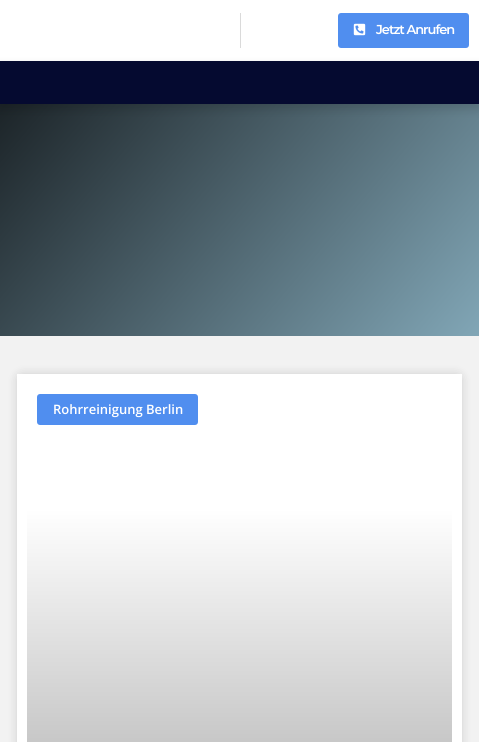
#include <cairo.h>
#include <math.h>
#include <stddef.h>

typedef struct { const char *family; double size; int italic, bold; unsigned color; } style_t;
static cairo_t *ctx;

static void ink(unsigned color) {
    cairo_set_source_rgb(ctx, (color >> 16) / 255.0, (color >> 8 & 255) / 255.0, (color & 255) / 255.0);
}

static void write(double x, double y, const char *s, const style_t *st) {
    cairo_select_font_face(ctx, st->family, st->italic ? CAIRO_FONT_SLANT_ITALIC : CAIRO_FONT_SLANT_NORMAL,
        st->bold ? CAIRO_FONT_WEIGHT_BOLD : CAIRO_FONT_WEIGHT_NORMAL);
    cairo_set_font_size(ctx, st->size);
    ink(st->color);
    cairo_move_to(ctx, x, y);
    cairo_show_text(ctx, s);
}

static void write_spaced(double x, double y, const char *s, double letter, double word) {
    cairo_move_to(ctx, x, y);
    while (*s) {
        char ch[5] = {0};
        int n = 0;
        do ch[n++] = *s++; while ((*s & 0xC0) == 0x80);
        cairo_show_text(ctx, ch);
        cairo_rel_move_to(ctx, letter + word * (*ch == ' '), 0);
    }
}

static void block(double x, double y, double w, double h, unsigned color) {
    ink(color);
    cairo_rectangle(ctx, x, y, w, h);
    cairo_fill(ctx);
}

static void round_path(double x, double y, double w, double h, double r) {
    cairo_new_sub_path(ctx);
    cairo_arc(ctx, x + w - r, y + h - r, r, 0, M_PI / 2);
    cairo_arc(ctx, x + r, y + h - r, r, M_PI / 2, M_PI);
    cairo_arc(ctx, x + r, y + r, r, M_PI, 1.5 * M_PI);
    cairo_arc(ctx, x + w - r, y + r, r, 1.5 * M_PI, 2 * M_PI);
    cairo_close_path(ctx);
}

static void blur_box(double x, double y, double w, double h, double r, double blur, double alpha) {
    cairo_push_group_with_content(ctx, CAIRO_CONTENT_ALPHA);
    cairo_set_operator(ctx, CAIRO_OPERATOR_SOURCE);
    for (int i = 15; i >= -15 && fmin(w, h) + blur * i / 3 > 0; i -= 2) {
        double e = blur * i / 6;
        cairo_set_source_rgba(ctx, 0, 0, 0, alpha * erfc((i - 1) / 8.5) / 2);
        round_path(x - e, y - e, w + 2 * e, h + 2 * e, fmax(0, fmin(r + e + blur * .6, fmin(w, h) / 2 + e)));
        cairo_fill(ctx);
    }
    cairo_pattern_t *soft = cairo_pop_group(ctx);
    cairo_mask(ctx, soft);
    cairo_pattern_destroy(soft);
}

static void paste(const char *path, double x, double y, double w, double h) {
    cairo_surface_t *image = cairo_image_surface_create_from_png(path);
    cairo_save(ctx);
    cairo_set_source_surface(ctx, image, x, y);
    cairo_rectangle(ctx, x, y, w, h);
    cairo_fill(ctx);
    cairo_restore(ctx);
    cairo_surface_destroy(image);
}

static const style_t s1 = {"Open Sans SemiBold", 13, 0, 0, 0xffffff};

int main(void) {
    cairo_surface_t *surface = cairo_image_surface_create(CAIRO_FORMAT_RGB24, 479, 742);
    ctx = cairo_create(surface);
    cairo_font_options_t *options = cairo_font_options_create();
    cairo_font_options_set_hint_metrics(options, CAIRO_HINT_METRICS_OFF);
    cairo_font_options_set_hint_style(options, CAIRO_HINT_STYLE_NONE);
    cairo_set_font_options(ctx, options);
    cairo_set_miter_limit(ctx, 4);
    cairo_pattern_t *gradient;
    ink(0xffffff);
    cairo_paint(ctx);
    block(240, 13, 1, 35, 0xdadada);
    ink(0x508eef);
    round_path(338, 13, 131, 35, 3);
    cairo_fill(ctx);
    paste("pic1.png", 353, 23, 13, 13);
    cairo_select_font_face(ctx, "Montserrat SemiBold", CAIRO_FONT_SLANT_NORMAL, CAIRO_FONT_WEIGHT_NORMAL);
    cairo_set_font_size(ctx, 13);
    ink(0xffffff);
    write_spaced(376, 34, "Jetzt Anrufen", -1, 0);
    gradient = cairo_pattern_create_linear(42, 54, 437, 386);
    cairo_pattern_add_color_stop_rgba(gradient, 0, 0.11, 0.141, 0.157, 1);
    cairo_pattern_add_color_stop_rgba(gradient, 1, 0.506, 0.651, 0.714, 1);
    cairo_set_source(ctx, gradient);
    cairo_pattern_destroy(gradient);
    cairo_rectangle(ctx, 0, 104, 479, 232);
    cairo_fill(ctx);
    ink(0x000000);
    blur_box(0, 66, 479, 43, 0, 5, 0.15);
    block(0, 61, 479, 43, 0x050a30);
    block(0, 336, 479, 406, 0xf2f2f2);
    ink(0x000000);
    blur_box(17, 374, 445, 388, 5, 5, 0.15);
    cairo_rectangle(ctx, 22, 379, 435, 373);
    ink(0xffffff);
    cairo_set_line_width(ctx, 10);
    cairo_stroke(ctx);
    gradient = cairo_pattern_create_linear(240, 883, 240, 384);
    cairo_pattern_add_color_stop_rgba(gradient, 0, 0.651, 0.651, 0.651, 1);
    cairo_pattern_add_color_stop_rgba(gradient, 0.75, 1, 1, 1, 1);
    cairo_set_source(ctx, gradient);
    cairo_pattern_destroy(gradient);
    cairo_rectangle(ctx, 27, 384, 425, 358);
    cairo_fill(ctx);
    ink(0x508eef);
    round_path(37, 394, 161, 31, 3);
    cairo_fill(ctx);
    write(53, 414, "Rohrreinigung Berlin", &s1);
    cairo_surface_write_to_png(surface, "screenshot.png");
    cairo_font_options_destroy(options);
    cairo_destroy(ctx);
    cairo_surface_destroy(surface);
    return 0;
}
